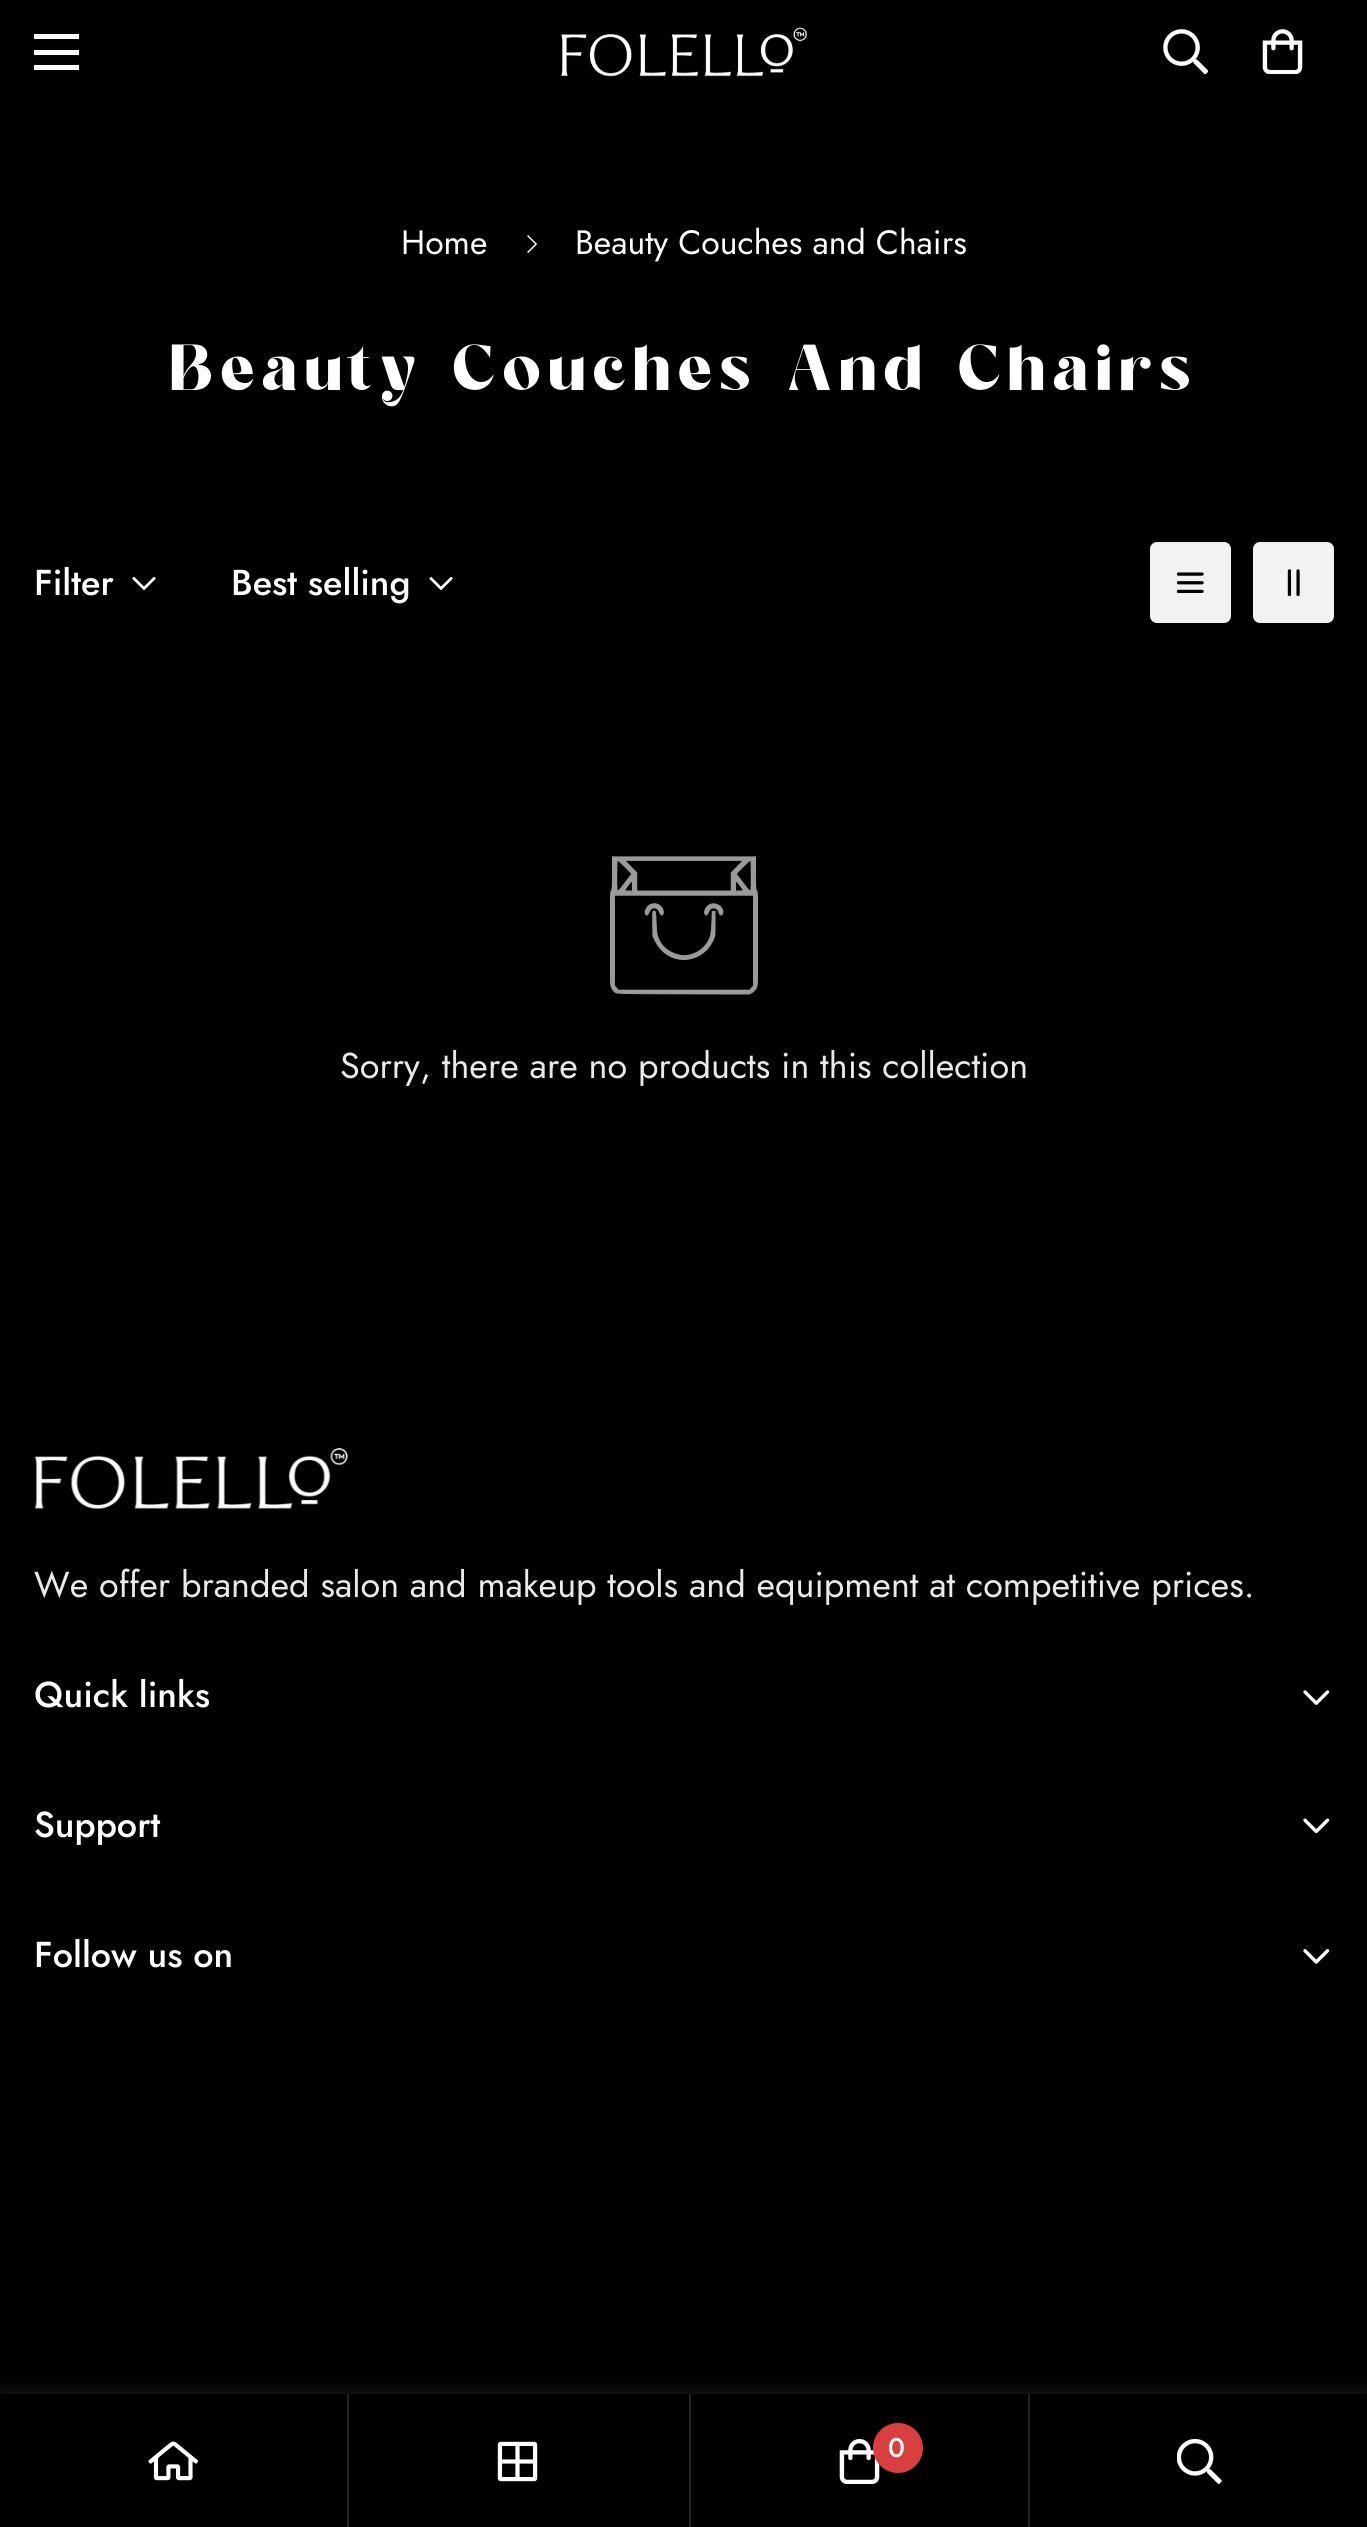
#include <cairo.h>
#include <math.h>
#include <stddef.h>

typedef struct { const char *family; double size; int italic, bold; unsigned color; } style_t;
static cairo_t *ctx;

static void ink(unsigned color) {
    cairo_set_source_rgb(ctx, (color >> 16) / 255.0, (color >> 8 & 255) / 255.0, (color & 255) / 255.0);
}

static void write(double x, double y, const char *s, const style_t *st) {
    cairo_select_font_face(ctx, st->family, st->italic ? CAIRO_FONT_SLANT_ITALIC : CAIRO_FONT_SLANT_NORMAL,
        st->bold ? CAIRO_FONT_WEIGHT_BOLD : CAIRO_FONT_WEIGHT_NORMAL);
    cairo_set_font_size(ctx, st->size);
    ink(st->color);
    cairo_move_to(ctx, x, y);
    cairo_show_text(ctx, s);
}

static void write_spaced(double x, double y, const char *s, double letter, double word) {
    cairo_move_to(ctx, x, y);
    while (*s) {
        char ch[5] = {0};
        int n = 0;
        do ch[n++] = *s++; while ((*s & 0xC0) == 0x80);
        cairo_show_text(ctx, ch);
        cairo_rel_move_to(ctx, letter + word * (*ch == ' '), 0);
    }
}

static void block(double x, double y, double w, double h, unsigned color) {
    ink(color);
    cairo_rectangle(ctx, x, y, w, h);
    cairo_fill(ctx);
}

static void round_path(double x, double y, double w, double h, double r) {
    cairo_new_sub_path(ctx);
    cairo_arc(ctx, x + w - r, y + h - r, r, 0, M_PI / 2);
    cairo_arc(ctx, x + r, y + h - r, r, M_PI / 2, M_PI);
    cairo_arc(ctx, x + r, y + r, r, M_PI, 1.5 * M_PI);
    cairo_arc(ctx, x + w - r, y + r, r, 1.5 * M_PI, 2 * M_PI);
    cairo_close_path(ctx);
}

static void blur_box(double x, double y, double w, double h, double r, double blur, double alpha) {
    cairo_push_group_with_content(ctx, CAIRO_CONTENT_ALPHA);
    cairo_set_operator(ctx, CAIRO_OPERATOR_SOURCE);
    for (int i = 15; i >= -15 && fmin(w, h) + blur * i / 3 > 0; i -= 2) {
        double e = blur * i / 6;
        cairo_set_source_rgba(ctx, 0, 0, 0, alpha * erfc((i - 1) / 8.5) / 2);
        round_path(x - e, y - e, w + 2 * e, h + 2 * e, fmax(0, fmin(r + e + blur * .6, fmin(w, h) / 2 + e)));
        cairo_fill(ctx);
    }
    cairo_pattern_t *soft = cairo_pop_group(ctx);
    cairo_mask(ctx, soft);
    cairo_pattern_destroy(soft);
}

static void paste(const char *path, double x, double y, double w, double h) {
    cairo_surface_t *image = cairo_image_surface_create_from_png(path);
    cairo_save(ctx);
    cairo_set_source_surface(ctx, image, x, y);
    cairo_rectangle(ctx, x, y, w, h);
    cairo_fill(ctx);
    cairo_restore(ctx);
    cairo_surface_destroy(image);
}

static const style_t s1 = {"Jost", 33.75, 0, 0, 0xffffff};
static const style_t s2 = {"Jost Medium", 36, 0, 0, 0xffffff};
static const style_t s3 = {"Jost", 36, 0, 0, 0xe9e9e9};
static const style_t s4 = {"Jost Medium", 27, 0, 0, 0xffffff};

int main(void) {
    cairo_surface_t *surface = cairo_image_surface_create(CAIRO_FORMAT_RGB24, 1367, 2527);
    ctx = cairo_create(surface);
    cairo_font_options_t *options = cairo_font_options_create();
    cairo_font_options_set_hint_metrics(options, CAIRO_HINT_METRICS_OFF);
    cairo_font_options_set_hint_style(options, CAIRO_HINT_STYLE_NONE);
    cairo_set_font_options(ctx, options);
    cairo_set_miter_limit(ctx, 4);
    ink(0x000000);
    cairo_paint(ctx);
    block(34, 50, 45, 5, 0xffffff);
    block(34, 34, 45, 5, 0xffffff);
    block(34, 65, 45, 5, 0xffffff);
    paste("pic1.png", 561, 27, 246, 50);
    paste("pic2.png", 1163, 29, 45, 45);
    paste("pic3.png", 1262, 29, 41, 45);
    write(401, 254, "Home", &s1);
    paste("pic4.png", 527, 235, 10, 18);
    write(575, 254, "Beauty Couches and Chairs", &s1);
    cairo_select_font_face(ctx, "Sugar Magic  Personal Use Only", CAIRO_FONT_SLANT_NORMAL, CAIRO_FONT_WEIGHT_NORMAL);
    cairo_set_font_size(ctx, 65.25);
    write_spaced(170, 390, "Beauty Couches And Chairs", 6.75, 0);
    write(34, 595, "Filter", &s2);
    paste("pic5.png", 132, 576, 24, 15);
    write(231, 595, "Best selling", &s2);
    paste("pic5.png", 429, 576, 24, 15);
    ink(0xf2f2f2);
    round_path(1150, 542, 81, 81, 7);
    cairo_fill(ctx);
    paste("pic6.png", 1177, 572, 27, 21);
    round_path(1253, 542, 81, 81, 7);
    cairo_fill(ctx);
    paste("pic7.png", 1287, 569, 13, 27);
    paste("pic8.png", 610, 856, 148, 139);
    write(340, 1078, "Sorry, there are no products in this collection", &s3);
    paste("pic9.png", 34, 1448, 314, 62);
    write(34, 1597, "We offer branded salon and makeup tools and equipment at competitive prices.", &s3);
    write(34, 1707, "Quick links", &s2);
    paste("pic10.png", 1303, 1690, 27, 15);
    write(34, 1837, "Support", &s2);
    paste("pic11.png", 1303, 1818, 27, 16);
    write(34, 1967, "Follow us on", &s2);
    paste("pic12.png", 1303, 1949, 27, 15);
    cairo_save(ctx);
    cairo_rectangle(ctx, 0, 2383, 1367, 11);
    cairo_clip(ctx);
    ink(0xffffff);
    blur_box(0, 2394, 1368, 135, 0, 11, 0.12);
    cairo_restore(ctx);
    block(347, 2394, 2, 133, 0x222222);
    paste("pic13.png", 148, 2441, 51, 40);
    block(689, 2394, 2, 133, 0x222222);
    paste("pic14.png", 497, 2441, 41, 41);
    block(1028, 2394, 2, 133, 0x222222);
    paste("pic15.png", 839, 2439, 41, 45);
    ink(0xda3f3f);
    cairo_arc(ctx, 898, 2448, 25, 0, 2 * M_PI);
    cairo_fill(ctx);
    write(888, 2457, "0", &s4);
    paste("pic16.png", 1177, 2439, 45, 45);
    cairo_surface_write_to_png(surface, "screenshot.png");
    cairo_font_options_destroy(options);
    cairo_destroy(ctx);
    cairo_surface_destroy(surface);
    return 0;
}
